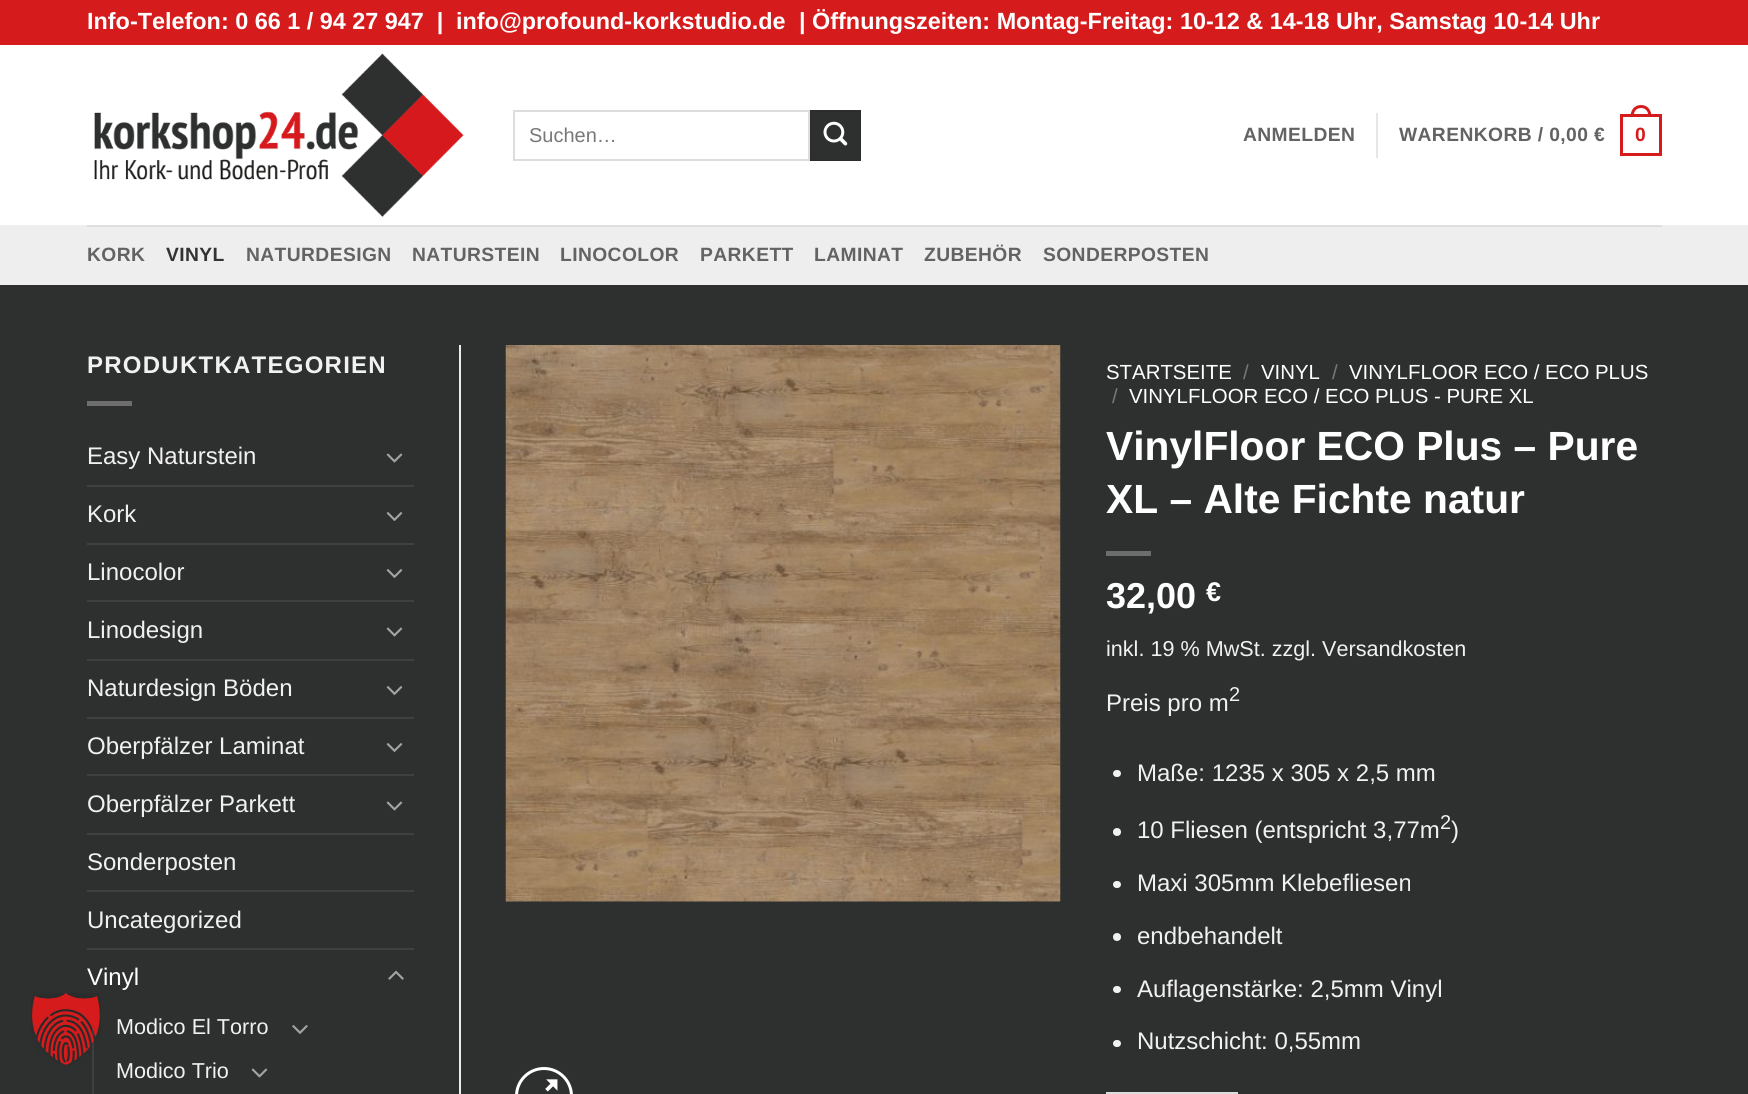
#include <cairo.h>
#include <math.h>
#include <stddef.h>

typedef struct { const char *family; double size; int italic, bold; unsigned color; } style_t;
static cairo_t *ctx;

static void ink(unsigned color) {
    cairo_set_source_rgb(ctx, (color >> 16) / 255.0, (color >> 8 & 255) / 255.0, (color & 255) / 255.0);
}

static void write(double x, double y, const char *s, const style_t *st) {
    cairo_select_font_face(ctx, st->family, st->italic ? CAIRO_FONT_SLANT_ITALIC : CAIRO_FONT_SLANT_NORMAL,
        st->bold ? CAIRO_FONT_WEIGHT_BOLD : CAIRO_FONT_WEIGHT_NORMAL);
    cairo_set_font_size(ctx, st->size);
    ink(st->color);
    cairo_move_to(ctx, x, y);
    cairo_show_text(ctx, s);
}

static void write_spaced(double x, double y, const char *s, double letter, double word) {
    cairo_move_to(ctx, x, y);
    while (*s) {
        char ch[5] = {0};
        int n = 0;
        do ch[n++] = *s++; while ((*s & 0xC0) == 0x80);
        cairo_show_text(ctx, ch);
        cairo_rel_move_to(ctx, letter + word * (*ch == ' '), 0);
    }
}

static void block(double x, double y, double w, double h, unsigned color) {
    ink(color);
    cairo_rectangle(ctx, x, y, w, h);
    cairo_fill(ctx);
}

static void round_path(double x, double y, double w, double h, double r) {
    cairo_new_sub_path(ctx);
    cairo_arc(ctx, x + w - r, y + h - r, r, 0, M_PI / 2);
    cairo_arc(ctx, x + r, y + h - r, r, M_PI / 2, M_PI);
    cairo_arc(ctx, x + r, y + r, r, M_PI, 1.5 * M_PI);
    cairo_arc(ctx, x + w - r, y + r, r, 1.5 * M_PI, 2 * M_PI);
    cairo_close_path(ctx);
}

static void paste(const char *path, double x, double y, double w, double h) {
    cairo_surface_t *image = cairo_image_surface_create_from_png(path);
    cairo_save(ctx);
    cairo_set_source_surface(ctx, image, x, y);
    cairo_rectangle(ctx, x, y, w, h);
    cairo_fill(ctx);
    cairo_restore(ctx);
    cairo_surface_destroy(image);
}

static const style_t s1 = {"Liberation Sans", 23.4, 0, 1, 0xffffff};
static const style_t s2 = {"Liberation Sans", 20, 0, 0, 0x777878};
static const style_t s3 = {"Liberation Sans", 24, 0, 0, 0xf1f1f1};
static const style_t s4 = {"Liberation Sans", 24, 0, 0, 0xffffff};
static const style_t s5 = {"Liberation Sans", 21.6, 0, 0, 0xf1f1f1};
static const style_t s6 = {"Liberation Sans", 20.4, 0, 0, 0xffffff};
static const style_t s7 = {"Liberation Sans", 20.4, 0, 0, 0x777878};
static const style_t s8 = {"Liberation Sans", 40.75, 0, 1, 0xffffff};
static const style_t s9 = {"Liberation Sans", 36, 0, 1, 0xffffff};
static const style_t s10 = {"Liberation Sans", 27, 0, 1, 0xffffff};
static const style_t s11 = {"Liberation Sans", 20, 0, 0, 0xf1f1f1};

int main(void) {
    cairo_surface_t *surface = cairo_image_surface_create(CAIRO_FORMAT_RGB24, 1748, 1094);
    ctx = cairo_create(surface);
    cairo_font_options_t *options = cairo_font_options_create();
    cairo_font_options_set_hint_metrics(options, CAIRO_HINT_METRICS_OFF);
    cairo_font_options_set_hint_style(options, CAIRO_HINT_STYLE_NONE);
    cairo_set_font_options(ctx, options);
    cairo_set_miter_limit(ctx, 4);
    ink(0x2e2f2f);
    cairo_paint(ctx);
    block(92, 1027, 2, 67, 0x3f4040);
    paste("pic1.png", 31, 993, 70, 72);
    block(0, 0, 1748, 45, 0xd51b1c);
    write(87, 29, "Info-Telefon: 0 66 1 / 94 27 947  |", &s1);
    write(456, 29, "info@profound-korkstudio.de", &s1);
    write(799, 29, "| Öffnungszeiten: Montag-Freitag: 10-12 & 14-18 Uhr, Samstag 10-14 Uhr", &s1);
    block(0, 45, 1748, 180, 0xffffff);
    paste("pic2.png", 94, 53, 370, 164);
    cairo_rectangle(ctx, 514, 111, 295, 49);
    ink(0xdddddd);
    cairo_stroke(ctx);
    write(529, 142, "Suchen…", &s2);
    ink(0x2e2f2f);
    cairo_rectangle(ctx, 811, 111, 49, 49);
    cairo_fill_preserve(ctx);
    ink(0x2c2d2d);
    cairo_stroke(ctx);
    paste("pic3.png", 823, 121, 25, 25);
    cairo_select_font_face(ctx, "Liberation Sans", CAIRO_FONT_SLANT_NORMAL, CAIRO_FONT_WEIGHT_BOLD);
    cairo_set_font_size(ctx, 19.25);
    ink(0x636363);
    write_spaced(1243, 141, "ANMELDEN", 0.4, 0);
    block(1376, 113, 2, 45, 0xe6e6e6);
    ink(0x636363);
    write_spaced(1399, 141, "WARENKORB / 0,00 €", 0.4, 0);
    cairo_rectangle(ctx, 1621.5, 115.5, 39, 39);
    ink(0xd51b1c);
    cairo_set_line_width(ctx, 3);
    cairo_stroke(ctx);
    cairo_set_fill_rule(ctx, CAIRO_FILL_RULE_EVEN_ODD);
    cairo_new_path(ctx);
    cairo_move_to(ctx, 1641, 105);
    cairo_curve_to(ctx, 1648, 105, 1651.5, 110.5, 1651.5, 117);
    cairo_line_to(ctx, 1630.5, 117);
    cairo_curve_to(ctx, 1630.5, 110.5, 1634, 105, 1641, 105);
    cairo_close_path(ctx);
    cairo_move_to(ctx, 1641, 108);
    cairo_curve_to(ctx, 1646.5, 108, 1648.5, 112.5, 1648.5, 117);
    cairo_line_to(ctx, 1633.5, 117);
    cairo_curve_to(ctx, 1633.5, 112.5, 1635.5, 108, 1641, 108);
    cairo_close_path(ctx);
    cairo_fill(ctx);
    write_spaced(1635, 141, "0", 0.4, 0);
    block(0, 225, 1748, 60, 0xeeeeee);
    block(87, 225, 1575, 2, 0xdedede);
    ink(0x636363);
    write_spaced(87, 261, "KORK", 0.4, 0);
    ink(0x333333);
    write_spaced(166, 261, "VINYL", 0.4, 0);
    ink(0x636363);
    write_spaced(246, 261, "NATURDESIGN", 0.4, 0);
    write_spaced(412, 261, "NATURSTEIN", 0.4, 0);
    write_spaced(560, 261, "LINOCOLOR", 0.4, 0);
    write_spaced(700, 261, "PARKETT", 0.4, 0);
    write_spaced(814, 261, "LAMINAT", 0.4, 0);
    write_spaced(924, 261, "ZUBEHÖR", 0.4, 0);
    write_spaced(1043, 261, "SONDERPOSTEN", 0.4, 0);
    cairo_set_font_size(ctx, 24);
    ink(0xf1f1f1);
    write_spaced(87, 373, "PRODUKTKATEGORIEN", 1.25, 0);
    block(87, 401, 45, 5, 0x6d6d6d);
    write(87, 464, "Easy Naturstein", &s3);
    paste("pic4.png", 386, 453, 17, 10);
    block(87, 485, 327, 2, 0x3f4040);
    write(87, 522, "Kork", &s3);
    paste("pic5.png", 386, 512, 17, 9);
    block(87, 543, 327, 2, 0x3f4040);
    write(87, 580, "Linocolor", &s3);
    paste("pic5.png", 386, 569, 17, 9);
    block(87, 600, 327, 2, 0x3f4040);
    write(87, 638, "Linodesign", &s3);
    paste("pic4.png", 386, 627, 17, 10);
    block(87, 659, 327, 2, 0x3f4040);
    write(87, 696, "Naturdesign Böden", &s3);
    paste("pic5.png", 386, 686, 17, 9);
    block(87, 717, 327, 2, 0x3f4040);
    write(87, 754, "Oberpfälzer Laminat", &s3);
    paste("pic5.png", 386, 743, 17, 9);
    block(87, 774, 327, 2, 0x3f4040);
    write(87, 812, "Oberpfälzer Parkett", &s3);
    paste("pic4.png", 386, 801, 17, 10);
    block(87, 833, 327, 2, 0x3f4040);
    write(87, 870, "Sonderposten", &s3);
    block(87, 890, 327, 2, 0x3f4040);
    write(87, 928, "Uncategorized", &s3);
    block(87, 948, 327, 2, 0x3f4040);
    write(87, 985, "Vinyl", &s4);
    paste("pic6.png", 388, 970, 16, 10);
    write(116, 1034, "Modico El Torro", &s5);
    paste("pic7.png", 292, 1025, 16, 9);
    write(116, 1078, "Modico Trio", &s5);
    paste("pic4.png", 251, 1068, 17, 10);
    block(459, 345, 2, 749, 0xececec);
    paste("pic8.png", 505, 345, 556, 557);
    cairo_arc(ctx, 544, 1096, 27.5, 0, 2 * M_PI);
    ink(0xffffff);
    cairo_stroke(ctx);
    paste("pic9.png", 545, 1079, 13, 13);
    write(1106, 379, "STARTSEITE", &s6);
    write(1243, 379, "/", &s7);
    write(1261, 379, "VINYL", &s6);
    write(1332, 379, "/", &s7);
    write(1349, 379, "VINYLFLOOR ECO / ECO PLUS", &s6);
    write(1112, 403, "/", &s7);
    write(1129, 403, "VINYLFLOOR ECO / ECO PLUS - PURE XL", &s6);
    write(1106, 460, "VinylFloor ECO Plus – Pure", &s8);
    write(1106, 513, "XL – Alte Fichte natur", &s8);
    block(1106, 551, 45, 5, 0x6d6d6d);
    write(1106, 608, "32,00", &s9);
    write(1206, 601, "€", &s10);
    write(1106, 656, "inkl. 19 % MwSt. zzgl. Versandkosten", &s5);
    write(1106, 711, "Preis pro m", &s3);
    write(1229, 701, "2", &s11);
    round_path(1113, 770, 8, 7, 3.5);
    cairo_fill(ctx);
    write(1137, 781, "Maße: 1235 x 305 x 2,5 mm", &s3);
    cairo_new_path(ctx);
    cairo_arc(ctx, 1117, 832, 4, 0, 2 * M_PI);
    cairo_fill(ctx);
    write(1137, 838, "10 Fliesen (entspricht 3,77m", &s3);
    write(1440, 829, "2", &s11);
    write(1451, 838, ")", &s3);
    round_path(1113, 881, 8, 7, 3.5);
    cairo_fill(ctx);
    write(1137, 891, "Maxi 305mm Klebefliesen", &s3);
    cairo_new_path(ctx);
    cairo_arc(ctx, 1117, 937, 4, 0, 2 * M_PI);
    cairo_fill(ctx);
    write(1137, 944, "endbehandelt", &s3);
    round_path(1113, 986, 8, 7, 3.5);
    cairo_fill(ctx);
    write(1137, 997, "Auflagenstärke: 2,5mm Vinyl", &s3);
    round_path(1113, 1040, 8, 7, 3.5);
    cairo_fill(ctx);
    write(1137, 1049, "Nutzschicht: 0,55mm", &s3);
    block(1106, 1092, 36, 2, 0xdddddd);
    cairo_rectangle(ctx, 1143, 1093, 58, 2);
    cairo_set_line_width(ctx, 2);
    cairo_stroke(ctx);
    block(1202, 1092, 36, 2, 0xdddddd);
    cairo_surface_write_to_png(surface, "screenshot.png");
    cairo_font_options_destroy(options);
    cairo_destroy(ctx);
    cairo_surface_destroy(surface);
    return 0;
}
